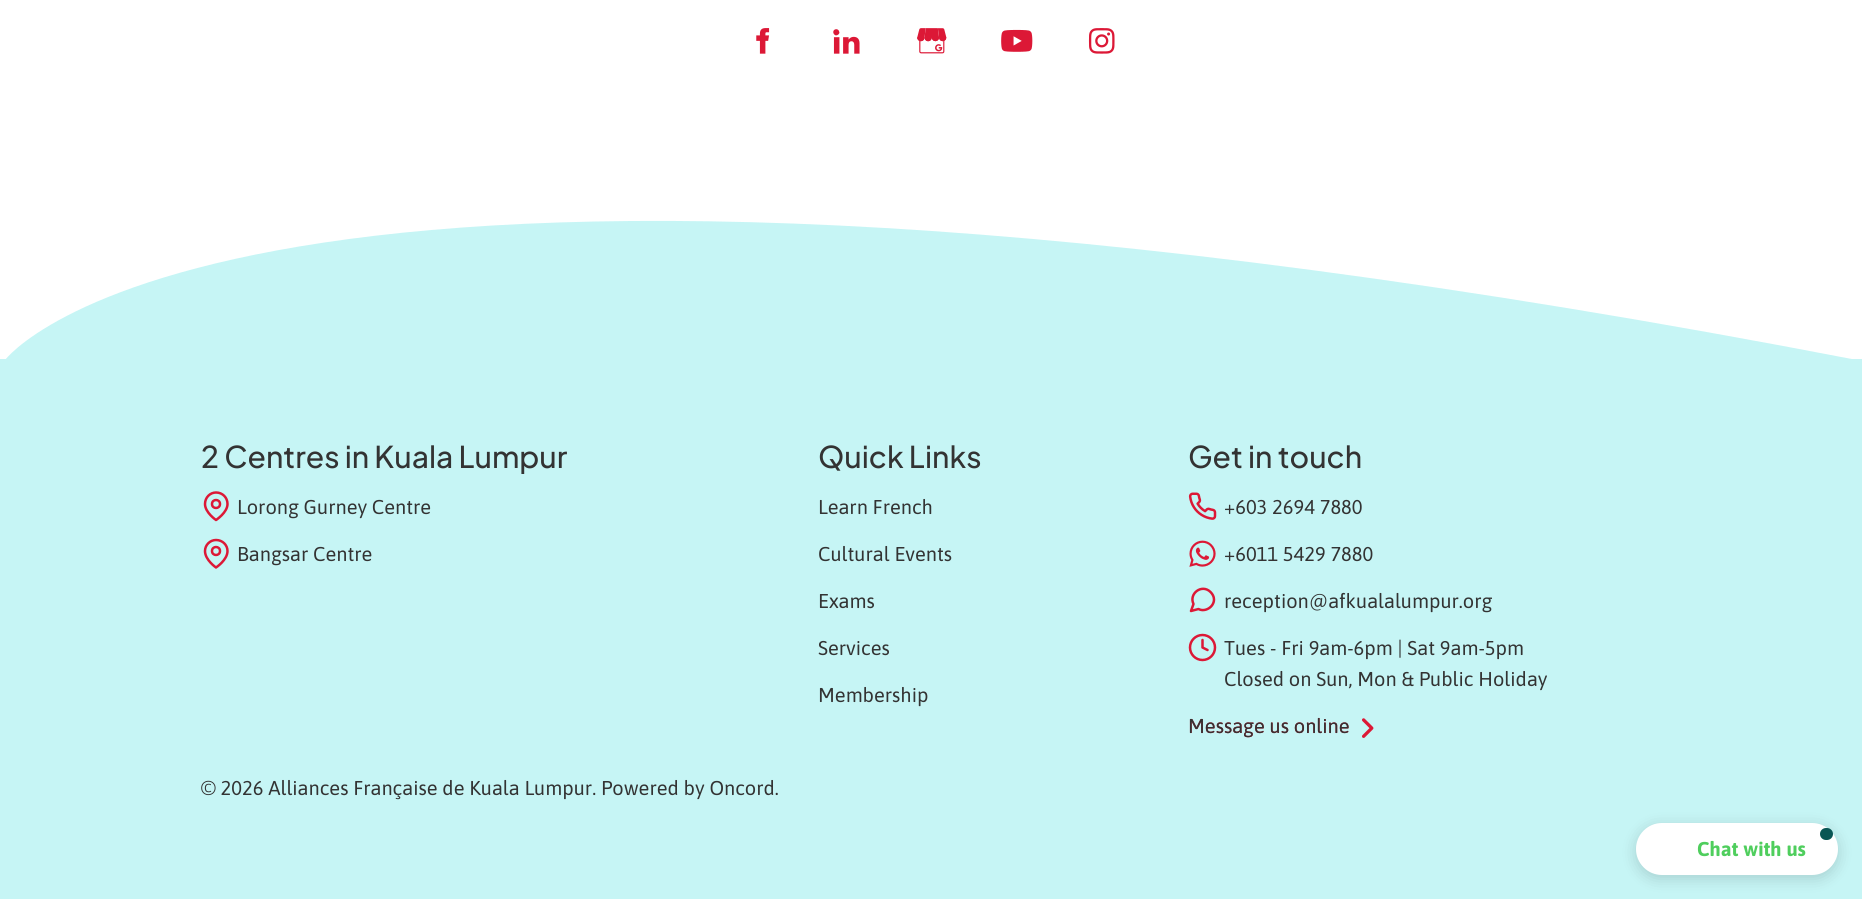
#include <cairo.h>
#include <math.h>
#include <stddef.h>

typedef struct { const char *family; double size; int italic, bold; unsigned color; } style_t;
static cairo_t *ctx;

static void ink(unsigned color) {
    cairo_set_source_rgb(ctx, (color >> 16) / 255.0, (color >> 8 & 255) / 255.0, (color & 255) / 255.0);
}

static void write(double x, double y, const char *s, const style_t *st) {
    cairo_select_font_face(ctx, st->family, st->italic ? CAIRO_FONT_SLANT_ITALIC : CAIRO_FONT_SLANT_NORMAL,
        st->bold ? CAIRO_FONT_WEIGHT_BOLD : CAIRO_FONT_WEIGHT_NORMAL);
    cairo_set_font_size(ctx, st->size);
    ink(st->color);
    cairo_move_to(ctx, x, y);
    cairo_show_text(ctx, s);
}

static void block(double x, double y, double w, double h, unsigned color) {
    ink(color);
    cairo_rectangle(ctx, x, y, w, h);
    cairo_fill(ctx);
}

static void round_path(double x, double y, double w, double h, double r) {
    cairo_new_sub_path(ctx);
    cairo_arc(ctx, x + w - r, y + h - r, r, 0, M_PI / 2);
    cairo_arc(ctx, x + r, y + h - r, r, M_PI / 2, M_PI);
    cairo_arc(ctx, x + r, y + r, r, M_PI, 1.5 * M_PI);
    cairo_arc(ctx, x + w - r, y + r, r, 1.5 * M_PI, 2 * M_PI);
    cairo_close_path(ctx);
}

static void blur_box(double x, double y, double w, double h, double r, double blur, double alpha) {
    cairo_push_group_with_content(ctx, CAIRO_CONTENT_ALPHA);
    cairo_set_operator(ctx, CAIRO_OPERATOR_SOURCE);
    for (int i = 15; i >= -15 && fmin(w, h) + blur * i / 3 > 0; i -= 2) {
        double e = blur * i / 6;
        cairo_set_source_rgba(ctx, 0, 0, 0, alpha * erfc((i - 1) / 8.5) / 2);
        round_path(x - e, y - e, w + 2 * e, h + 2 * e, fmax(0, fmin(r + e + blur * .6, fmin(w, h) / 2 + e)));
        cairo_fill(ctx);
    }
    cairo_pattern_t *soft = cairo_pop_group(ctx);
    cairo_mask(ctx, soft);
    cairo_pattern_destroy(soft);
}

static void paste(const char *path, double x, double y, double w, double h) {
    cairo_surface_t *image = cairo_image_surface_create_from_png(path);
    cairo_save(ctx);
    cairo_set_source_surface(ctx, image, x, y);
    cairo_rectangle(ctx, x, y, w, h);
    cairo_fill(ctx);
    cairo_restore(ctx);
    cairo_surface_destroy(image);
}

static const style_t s1 = {"Plus Jakarta Sans Medium", 30, 0, 0, 0x333333};
static const style_t s2 = {"Asap", 20, 0, 0, 0x333333};
static const style_t s3 = {"Asap", 20, 0, 0, 0xdc1836};
static const style_t s4 = {"Asap", 20, 0, 1, 0x4fce5d};

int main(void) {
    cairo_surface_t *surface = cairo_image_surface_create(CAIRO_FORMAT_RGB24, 1862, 899);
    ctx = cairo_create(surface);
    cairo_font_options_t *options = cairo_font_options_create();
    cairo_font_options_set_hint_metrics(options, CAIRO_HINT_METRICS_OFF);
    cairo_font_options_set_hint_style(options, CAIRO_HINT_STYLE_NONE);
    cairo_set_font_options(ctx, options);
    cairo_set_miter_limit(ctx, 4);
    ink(0xffffff);
    cairo_paint(ctx);
    paste("pic1.png", 756, 28, 14, 26);
    paste("pic2.png", 833, 29, 27, 25);
    paste("pic3.png", 917, 28, 30, 26);
    paste("pic4.png", 1001, 29, 32, 23);
    paste("pic5.png", 1088, 28, 27, 26);
    ink(0xc6f5f5);
    cairo_new_path(ctx);
    cairo_move_to(ctx, 622, 360);
    cairo_line_to(ctx, 1857, 360);
    cairo_curve_to(ctx, 237, 47, 5, 360, 5, 360);
    cairo_fill(ctx);
    block(0, 359, 1862, 540, 0xc6f5f5);
    write(201, 468, "2 Centres in Kuala Lumpur", &s1);
    cairo_new_path(ctx);
    cairo_move_to(ctx, 227.5, 504);
    cairo_curve_to(ctx, 227.5, 512.5, 216, 520, 216, 520);
    cairo_curve_to(ctx, 216, 520, 205, 512.5, 205, 504);
    cairo_curve_to(ctx, 205, 497.5, 210, 492.5, 216, 492.5);
    cairo_curve_to(ctx, 222.5, 492.5, 227.5, 497.5, 227.5, 504);
    cairo_close_path(ctx);
    ink(0xdc1836);
    cairo_set_line_width(ctx, 2.5);
    cairo_set_line_cap(ctx, CAIRO_LINE_CAP_ROUND);
    cairo_set_line_join(ctx, CAIRO_LINE_JOIN_ROUND);
    cairo_stroke(ctx);
    cairo_arc(ctx, 216, 504, 4, 0, 2 * M_PI);
    cairo_set_line_cap(ctx, CAIRO_LINE_CAP_BUTT);
    cairo_set_line_join(ctx, CAIRO_LINE_JOIN_MITER);
    cairo_stroke(ctx);
    write(237, 514, "Lorong Gurney Centre", &s2);
    cairo_new_path(ctx);
    cairo_move_to(ctx, 227.5, 551);
    cairo_curve_to(ctx, 227.5, 560, 216, 567.5, 216, 567.5);
    cairo_curve_to(ctx, 216, 567.5, 205, 560, 205, 551);
    cairo_curve_to(ctx, 205, 545, 210, 540, 216, 540);
    cairo_curve_to(ctx, 222.5, 540, 227.5, 545, 227.5, 551);
    cairo_close_path(ctx);
    ink(0xdc1836);
    cairo_set_line_cap(ctx, CAIRO_LINE_CAP_ROUND);
    cairo_set_line_join(ctx, CAIRO_LINE_JOIN_ROUND);
    cairo_stroke(ctx);
    cairo_arc(ctx, 216, 551, 4, 0, 2 * M_PI);
    cairo_set_line_cap(ctx, CAIRO_LINE_CAP_BUTT);
    cairo_set_line_join(ctx, CAIRO_LINE_JOIN_MITER);
    cairo_stroke(ctx);
    write(237, 561, "Bangsar Centre", &s2);
    write(818, 468, "Quick Links", &s1);
    write(818, 514, "Learn French", &s2);
    write(818, 561, "Cultural Events", &s2);
    write(818, 608, "Exams", &s2);
    write(818, 655, "Services", &s2);
    write(818, 702, "Membership", &s2);
    write(1188, 468, "Get in touch", &s1);
    paste("pic6.png", 1188, 492, 29, 28);
    write(1224, 514, "+603 2694 7880", &s2);
    paste("pic7.png", 1189, 540, 27, 27);
    write(1224, 561, "+6011 5429 7880", &s2);
    cairo_new_path(ctx);
    cairo_move_to(ctx, 1214, 599.5);
    cairo_curve_to(ctx, 1214, 607, 1205, 612.5, 1198.5, 609);
    cairo_line_to(ctx, 1191, 611);
    cairo_line_to(ctx, 1193.5, 604);
    cairo_curve_to(ctx, 1188.5, 593.5, 1202, 583.5, 1210.5, 592);
    cairo_curve_to(ctx, 1212.5, 594, 1214, 596.5, 1214, 599.5);
    cairo_close_path(ctx);
    ink(0xdc1836);
    cairo_set_line_cap(ctx, CAIRO_LINE_CAP_ROUND);
    cairo_set_line_join(ctx, CAIRO_LINE_JOIN_ROUND);
    cairo_stroke(ctx);
    write(1224, 608, "reception@afkualalumpur.org", &s2);
    cairo_new_path(ctx);
    cairo_arc(ctx, 1202.5, 647.5, 12.5, 0, 2 * M_PI);
    ink(0xdc1836);
    cairo_set_line_cap(ctx, CAIRO_LINE_CAP_BUTT);
    cairo_set_line_join(ctx, CAIRO_LINE_JOIN_MITER);
    cairo_stroke(ctx);
    cairo_new_path(ctx);
    cairo_move_to(ctx, 1202.5, 640);
    cairo_line_to(ctx, 1202.5, 647.5);
    cairo_line_to(ctx, 1207.5, 650);
    cairo_set_line_cap(ctx, CAIRO_LINE_CAP_ROUND);
    cairo_set_line_join(ctx, CAIRO_LINE_JOIN_ROUND);
    cairo_stroke(ctx);
    write(1224, 655, "Tues - Fri 9am-6pm | Sat 9am-5pm", &s2);
    write(1224, 686, "Closed on Sun, Mon & Public Holiday", &s2);
    write(1188, 733, "Message us online", &s3);
    paste("pic8.png", 1362, 718, 12, 20);
    write(1188, 733, "Message us online", &s2);
    write(201, 795, "© 2026 Alliances Française de Kuala Lumpur. Powered by Oncord.", &s2);
    ink(0x000000);
    blur_box(1636, 826, 202, 53, 26.5, 7.5, 0.15);
    ink(0xffffff);
    round_path(1636, 823, 202, 52, 26);
    cairo_fill(ctx);
    ink(0x0a5654);
    round_path(1820, 828, 13, 12, 6);
    cairo_fill(ctx);
    write(1697, 856, "Chat with us", &s4);
    cairo_surface_write_to_png(surface, "screenshot.png");
    cairo_font_options_destroy(options);
    cairo_destroy(ctx);
    cairo_surface_destroy(surface);
    return 0;
}
